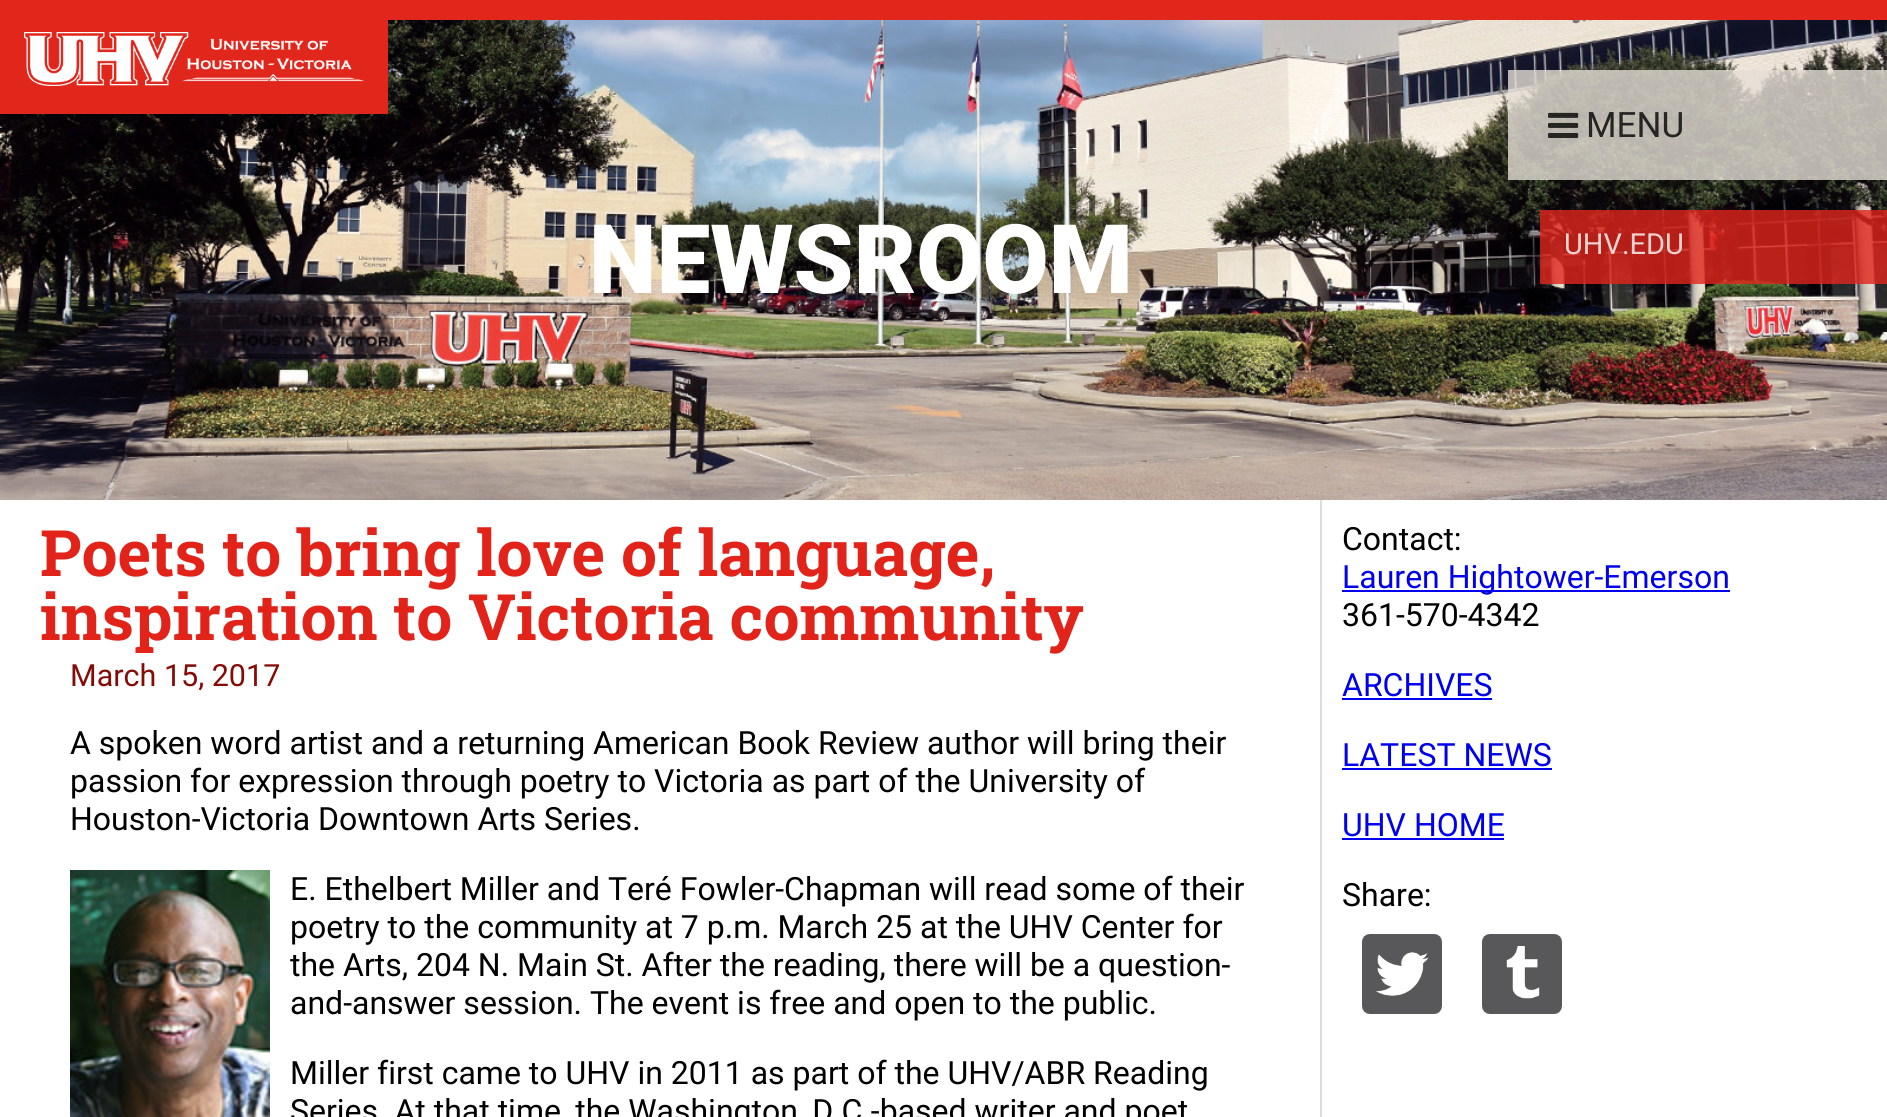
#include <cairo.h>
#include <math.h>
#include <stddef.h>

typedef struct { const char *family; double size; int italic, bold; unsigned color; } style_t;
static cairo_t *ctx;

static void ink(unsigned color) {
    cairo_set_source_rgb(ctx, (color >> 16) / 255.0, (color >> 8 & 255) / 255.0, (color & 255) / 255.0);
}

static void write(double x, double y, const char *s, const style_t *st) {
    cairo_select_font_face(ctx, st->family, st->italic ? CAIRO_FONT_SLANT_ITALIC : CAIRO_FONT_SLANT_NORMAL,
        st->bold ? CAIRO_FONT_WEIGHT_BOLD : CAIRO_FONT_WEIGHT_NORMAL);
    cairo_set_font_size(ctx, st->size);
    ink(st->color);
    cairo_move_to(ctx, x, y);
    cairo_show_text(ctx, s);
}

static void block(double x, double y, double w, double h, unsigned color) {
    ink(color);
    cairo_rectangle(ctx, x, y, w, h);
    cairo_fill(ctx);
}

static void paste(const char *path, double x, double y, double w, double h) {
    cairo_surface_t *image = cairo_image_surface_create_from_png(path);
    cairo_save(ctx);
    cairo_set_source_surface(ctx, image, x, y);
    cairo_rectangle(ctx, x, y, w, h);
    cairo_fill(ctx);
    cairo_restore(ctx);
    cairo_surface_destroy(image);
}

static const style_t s1 = {"Roboto", 35, 0, 0, 0x262523};
static const style_t s2 = {"Roboto", 29, 0, 0, 0xf1d3d1};
static const style_t s3 = {"Roboto Black", 96, 0, 0, 0xffffff};
static const style_t s4 = {"Roboto Slab", 64, 0, 1, 0xe2231a};
static const style_t s5 = {"Roboto", 30.5, 0, 0, 0x850c06};
static const style_t s6 = {"Roboto", 32, 0, 0, 0x000000};
static const style_t s7 = {"Roboto", 32, 0, 0, 0x0000ee};

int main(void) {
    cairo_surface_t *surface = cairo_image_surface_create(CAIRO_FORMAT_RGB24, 1887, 1117);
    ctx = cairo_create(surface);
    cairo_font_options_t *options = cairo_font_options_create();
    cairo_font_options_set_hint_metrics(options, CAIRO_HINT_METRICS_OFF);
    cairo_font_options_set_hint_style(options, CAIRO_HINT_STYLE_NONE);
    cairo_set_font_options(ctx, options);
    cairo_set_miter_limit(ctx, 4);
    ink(0xffffff);
    cairo_paint(ctx);
    paste("pic2.png", 0, 20, 1887, 480);
    cairo_set_source_rgba(ctx, 0.894, 0.871, 0.839, 0.8);
    cairo_rectangle(ctx, 1508, 70, 379, 110);
    cairo_fill(ctx);
    paste("pic1.png", 1548, 112, 31, 26);
    write(1586, 137, "MENU", &s1);
    cairo_set_source_rgba(ctx, 0.882, 0.149, 0.11, 0.8);
    cairo_rectangle(ctx, 1540, 210, 347, 74);
    cairo_fill(ctx);
    write(1564, 254, "UHV.EDU", &s2);
    block(388, 0, 1499, 20, 0xe1261c);
    block(0, 0, 388, 114, 0xe1261c);
    paste("pic3.png", 24, 32, 340, 54);
    write(589, 293, "NEWSROOM", &s3);
    block(1320, 500, 2, 617, 0xdddddd);
    write(40, 576, "Poets to bring love of language,", &s4);
    write(40, 640, "inspiration to Victoria community", &s4);
    write(70, 686, "March 15, 2017", &s5);
    write(70, 754, "A spoken word artist and a returning American Book Review author will bring their", &s6);
    write(70, 792, "passion for expression through poetry to Victoria as part of the University of", &s6);
    write(70, 830, "Houston-Victoria Downtown Arts Series.", &s6);
    paste("pic4.png", 70, 870, 200, 247);
    write(290, 900, "E. Ethelbert Miller and Teré Fowler-Chapman will read some of their", &s6);
    write(290, 938, "poetry to the community at 7 p.m. March 25 at the UHV Center for", &s6);
    write(290, 976, "the Arts, 204 N. Main St. After the reading, there will be a question-", &s6);
    write(290, 1014, "and-answer session. The event is free and open to the public.", &s6);
    write(290, 1084, "Miller first came to UHV in 2011 as part of the UHV/ABR Reading", &s6);
    write(290, 1122, "Series. At that time, the Washington, D.C.-based writer and poet", &s6);
    write(1342, 550, "Contact:", &s6);
    block(1342, 590, 388, 2, 0x0000ee);
    write(1342, 588, "Lauren Hightower-Emerson", &s7);
    write(1342, 626, "361-570-4342", &s6);
    write(1342, 696, "ARCHIVES", &s7);
    block(1342, 698, 150, 2, 0x0000ee);
    write(1342, 766, "LATEST NEWS", &s7);
    block(1342, 768, 210, 2, 0x0000ee);
    write(1342, 836, "UHV HOME", &s7);
    block(1342, 838, 162, 2, 0x0000ee);
    write(1342, 906, "Share:", &s6);
    paste("pic5.png", 1362, 934, 80, 80);
    paste("pic6.png", 1482, 934, 80, 80);
    cairo_surface_write_to_png(surface, "screenshot.png");
    cairo_font_options_destroy(options);
    cairo_destroy(ctx);
    cairo_surface_destroy(surface);
    return 0;
}
